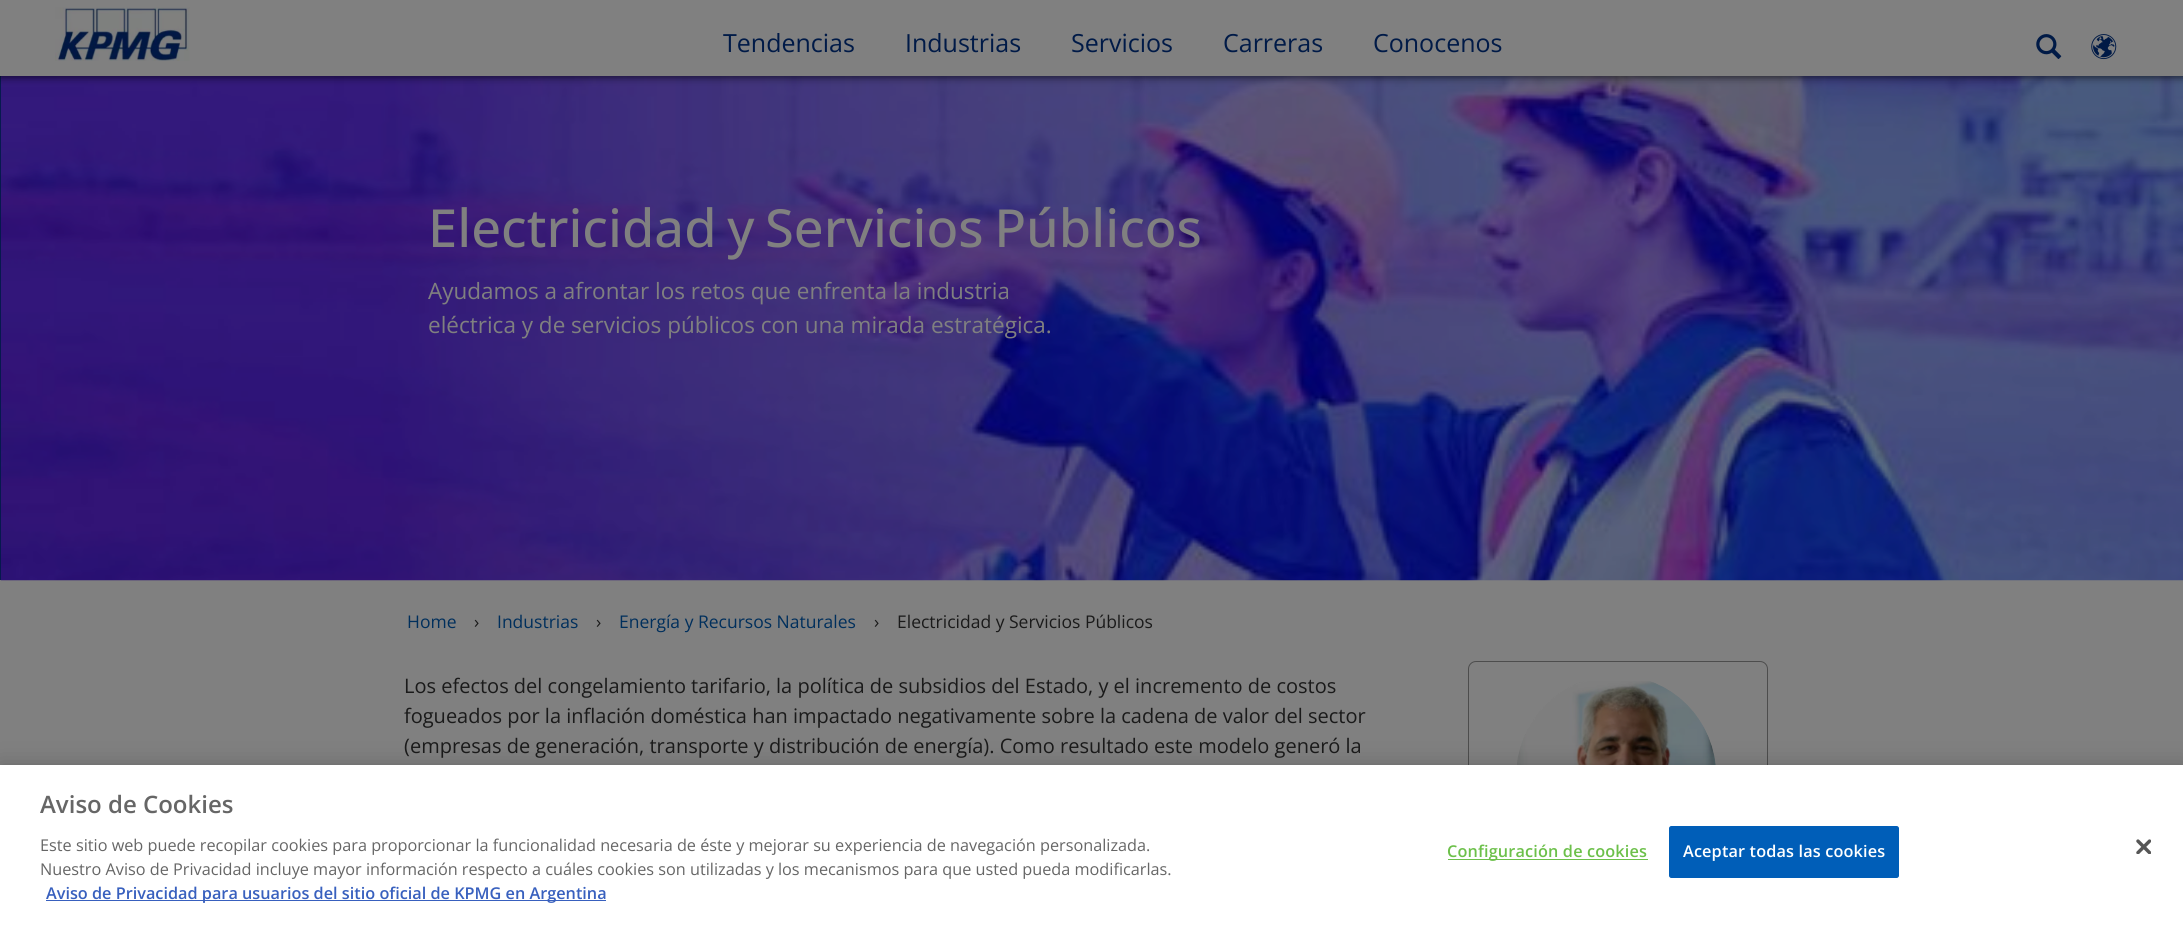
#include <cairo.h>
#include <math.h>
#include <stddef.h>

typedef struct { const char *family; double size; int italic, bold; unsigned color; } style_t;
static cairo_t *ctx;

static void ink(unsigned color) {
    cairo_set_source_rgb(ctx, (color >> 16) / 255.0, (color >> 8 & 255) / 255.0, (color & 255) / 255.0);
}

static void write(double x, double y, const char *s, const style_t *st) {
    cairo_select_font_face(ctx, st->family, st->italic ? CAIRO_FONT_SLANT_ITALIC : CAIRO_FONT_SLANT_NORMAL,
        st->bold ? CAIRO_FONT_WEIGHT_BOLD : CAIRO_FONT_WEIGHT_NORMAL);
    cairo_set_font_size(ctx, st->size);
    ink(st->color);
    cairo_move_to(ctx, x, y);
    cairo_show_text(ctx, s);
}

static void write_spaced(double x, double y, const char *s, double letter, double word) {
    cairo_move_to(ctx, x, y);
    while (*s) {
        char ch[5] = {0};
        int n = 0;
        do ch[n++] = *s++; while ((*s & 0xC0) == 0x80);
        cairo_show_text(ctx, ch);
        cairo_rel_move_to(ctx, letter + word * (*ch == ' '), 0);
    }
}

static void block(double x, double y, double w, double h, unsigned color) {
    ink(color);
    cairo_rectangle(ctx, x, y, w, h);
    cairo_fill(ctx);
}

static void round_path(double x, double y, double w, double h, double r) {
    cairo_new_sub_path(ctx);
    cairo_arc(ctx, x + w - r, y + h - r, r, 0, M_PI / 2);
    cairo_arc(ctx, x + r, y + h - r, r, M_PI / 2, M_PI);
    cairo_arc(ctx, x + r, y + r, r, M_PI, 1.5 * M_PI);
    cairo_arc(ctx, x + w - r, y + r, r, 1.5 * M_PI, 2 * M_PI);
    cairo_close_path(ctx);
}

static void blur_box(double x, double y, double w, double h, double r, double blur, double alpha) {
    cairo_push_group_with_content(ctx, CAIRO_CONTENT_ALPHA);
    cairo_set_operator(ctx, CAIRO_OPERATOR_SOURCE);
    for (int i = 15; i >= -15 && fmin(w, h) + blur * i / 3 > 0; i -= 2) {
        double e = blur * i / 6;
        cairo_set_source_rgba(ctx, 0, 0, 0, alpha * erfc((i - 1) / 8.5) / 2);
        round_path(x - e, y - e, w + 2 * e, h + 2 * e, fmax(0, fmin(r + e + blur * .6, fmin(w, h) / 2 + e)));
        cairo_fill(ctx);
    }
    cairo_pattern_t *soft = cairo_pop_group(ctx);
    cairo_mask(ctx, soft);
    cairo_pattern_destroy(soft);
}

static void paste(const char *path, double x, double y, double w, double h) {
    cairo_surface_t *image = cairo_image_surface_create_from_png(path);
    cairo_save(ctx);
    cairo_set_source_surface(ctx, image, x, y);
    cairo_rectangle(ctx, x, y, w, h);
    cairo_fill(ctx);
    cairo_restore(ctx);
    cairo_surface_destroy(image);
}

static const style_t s1 = {"Open Sans", 25, 0, 0, 0x001a47};
static const style_t s2 = {"Open Sans", 22.5, 0, 0, 0x808080};
static const style_t s3 = {"Open Sans", 17.5, 0, 0, 0x002f5c};
static const style_t s4 = {"Open Sans", 17.5, 0, 0, 0x1a1a1a};
static const style_t s5 = {"Open Sans", 20, 0, 0, 0x1a1a1a};
static const style_t s6 = {"Open Sans SemiBold", 24, 0, 0, 0x666666};
static const style_t s7 = {"Open Sans", 16.25, 0, 0, 0x666666};
static const style_t s8 = {"Open Sans SemiBold", 16.25, 0, 0, 0x3860be};

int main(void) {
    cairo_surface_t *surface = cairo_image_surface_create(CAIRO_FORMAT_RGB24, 2183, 934);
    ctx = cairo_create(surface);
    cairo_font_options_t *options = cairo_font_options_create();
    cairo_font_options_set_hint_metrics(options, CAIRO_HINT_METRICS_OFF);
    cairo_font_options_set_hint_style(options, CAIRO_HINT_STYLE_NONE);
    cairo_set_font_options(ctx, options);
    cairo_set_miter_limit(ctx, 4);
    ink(0x808080);
    cairo_paint(ctx);
    block(0, 76, 1, 504, 0x001a47);
    paste("pic4.png", 0, 76, 2183, 505);
    ink(0x000000);
    blur_box(0, -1, 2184, 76, 0, 5, 1);
    block(0, 0, 2183, 76, 0x808080);
    paste("pic1.png", 55, 7, 135, 54);
    write(723, 52, "Tendencias", &s1);
    write(905, 52, "Industrias", &s1);
    write(1071, 52, "Servicios", &s1);
    write(1223, 52, "Carreras", &s1);
    write(1373, 52, "Conocenos", &s1);
    paste("pic2.png", 2036, 34, 26, 25);
    paste("pic3.png", 2091, 34, 26, 26);
    cairo_select_font_face(ctx, "Open Sans Medium", CAIRO_FONT_SLANT_NORMAL, CAIRO_FONT_WEIGHT_NORMAL);
    cairo_set_font_size(ctx, 52.5);
    ink(0x808080);
    write_spaced(428, 247, "Electricidad y Servicios Públicos", 0, -3);
    write(428, 299, "Ayudamos a afrontar los retos que enfrenta la industria", &s2);
    write(428, 333, "eléctrica y de servicios públicos con una mirada estratégica.", &s2);
    write(407, 628, "Home", &s3);
    write(474, 628, "›", &s4);
    write(497, 628, "Industrias", &s3);
    write(596, 628, "›", &s4);
    write(619, 628, "Energía y Recursos Naturales", &s3);
    write(874, 628, "›", &s4);
    write(897, 628, "Electricidad y Servicios Públicos", &s4);
    write(404, 693, "Los efectos del congelamiento tarifario, la política de subsidios del Estado, y el incremento de costos", &s5);
    write(404, 723, "fogueados por la inflación doméstica han impactado negativamente sobre la cadena de valor del sector", &s5);
    write(404, 753, "(empresas de generación, transporte y distribución de energía). Como resultado este modelo generó la", &s5);
    round_path(1468.5, 661.5, 299, 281, 7.5);
    ink(0x4d4d4d);
    cairo_set_line_width(ctx, 1);
    cairo_stroke(ctx);
    paste("pic5.png", 1516, 681, 200, 84);
    paste("pic6.png", 1516, 681, 200, 84);
    ink(0x000000);
    blur_box(0, 765, 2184, 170, 0, 11, 0.2);
    block(0, 765, 2183, 169, 0xffffff);
    write(40, 813, "Aviso de Cookies", &s6);
    write(40, 851, "Este sitio web puede recopilar cookies para proporcionar la funcionalidad necesaria de éste y mejorar su experiencia de navegación personalizada.", &s7);
    write(40, 875, "Nuestro Aviso de Privacidad incluye mayor información respecto a cuáles cookies son utilizadas y los mecanismos para que usted pueda modificarlas.", &s7);
    block(46, 900, 560, 1, 0x3860be);
    write(46, 899, "Aviso de Privacidad para usuarios del sitio oficial de KPMG en Argentina", &s8);
    block(1448, 859, 200, 1, 0x6cc04a);
    write_spaced(1447, 857, "Configuración de cookies", 0.15, 0);
    ink(0x005eb8);
    round_path(1669.5, 826.5, 229, 51, 2);
    cairo_fill_preserve(ctx);
    cairo_stroke(ctx);
    ink(0xffffff);
    write_spaced(1683, 857, "Aceptar todas las cookies", 0.15, 0);
    paste("pic7.png", 2136, 839, 15, 15);
    cairo_surface_write_to_png(surface, "screenshot.png");
    cairo_font_options_destroy(options);
    cairo_destroy(ctx);
    cairo_surface_destroy(surface);
    return 0;
}
